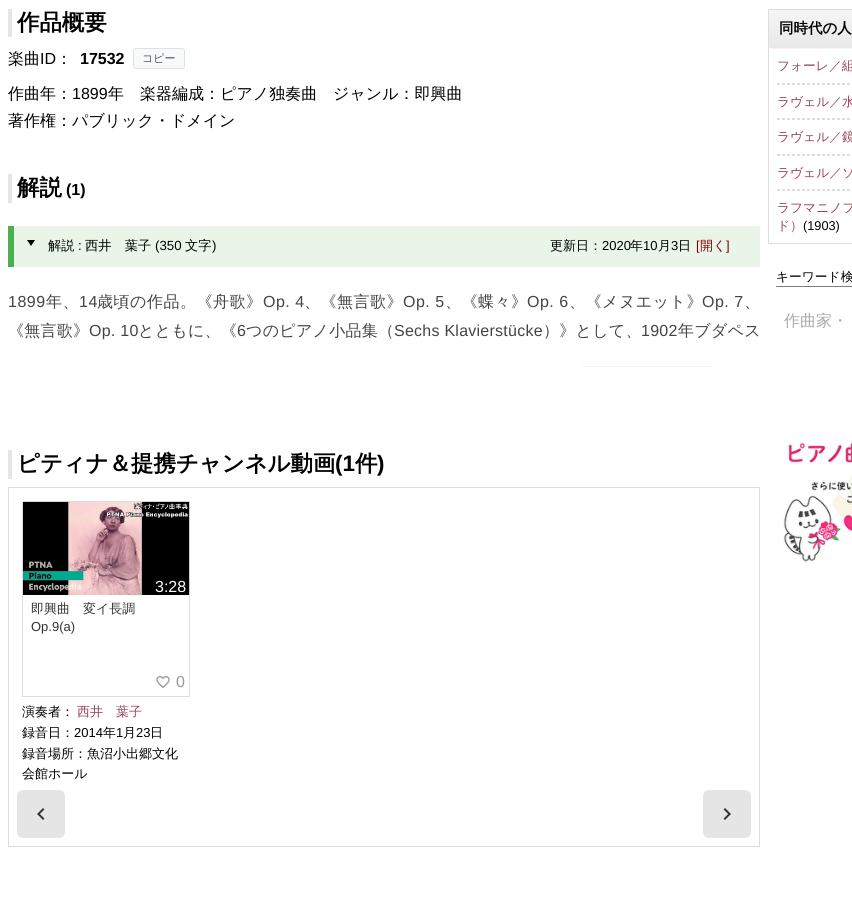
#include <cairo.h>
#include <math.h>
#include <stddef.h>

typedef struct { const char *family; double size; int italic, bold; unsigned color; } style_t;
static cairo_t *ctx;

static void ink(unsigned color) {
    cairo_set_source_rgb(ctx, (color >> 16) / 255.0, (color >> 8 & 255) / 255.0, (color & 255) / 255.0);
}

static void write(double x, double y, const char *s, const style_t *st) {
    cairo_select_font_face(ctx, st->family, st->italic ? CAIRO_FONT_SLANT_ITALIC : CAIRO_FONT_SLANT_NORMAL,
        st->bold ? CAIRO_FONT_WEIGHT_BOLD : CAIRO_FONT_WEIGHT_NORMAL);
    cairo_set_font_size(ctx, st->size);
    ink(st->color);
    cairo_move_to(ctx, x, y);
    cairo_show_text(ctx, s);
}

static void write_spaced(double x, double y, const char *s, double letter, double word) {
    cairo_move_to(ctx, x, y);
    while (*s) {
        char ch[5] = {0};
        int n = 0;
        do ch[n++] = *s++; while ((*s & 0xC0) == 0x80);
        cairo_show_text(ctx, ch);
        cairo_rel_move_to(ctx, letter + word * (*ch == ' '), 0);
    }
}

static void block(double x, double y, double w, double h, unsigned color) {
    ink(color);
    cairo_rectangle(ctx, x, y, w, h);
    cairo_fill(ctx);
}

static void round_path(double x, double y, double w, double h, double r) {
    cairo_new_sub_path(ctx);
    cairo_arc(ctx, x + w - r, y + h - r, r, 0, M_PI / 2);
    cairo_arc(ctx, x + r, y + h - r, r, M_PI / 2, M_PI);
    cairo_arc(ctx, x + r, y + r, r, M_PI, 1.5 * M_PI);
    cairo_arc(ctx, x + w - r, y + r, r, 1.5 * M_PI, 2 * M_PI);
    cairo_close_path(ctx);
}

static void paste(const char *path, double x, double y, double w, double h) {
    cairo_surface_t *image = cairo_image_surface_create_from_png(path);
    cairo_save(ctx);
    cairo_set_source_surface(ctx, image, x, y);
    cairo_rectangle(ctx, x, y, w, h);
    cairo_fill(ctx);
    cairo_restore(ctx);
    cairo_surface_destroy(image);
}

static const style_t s1 = {"WenQuanYi Zen Hei", 22.4, 0, 1, 0x000000};
static const style_t s2 = {"WenQuanYi Zen Hei Medium", 16, 0, 0, 0x000000};
static const style_t s3 = {"Liberation Sans", 16, 0, 0, 0x000000};
static const style_t s4 = {"Liberation Sans", 16, 0, 1, 0x000000};
static const style_t s5 = {"WenQuanYi Zen Hei Medium", 11, 0, 0, 0x495057};
static const style_t s6 = {"WenQuanYi Zen Hei Medium", 13.25, 0, 0, 0x000000};
static const style_t s7 = {"Liberation Sans", 13.25, 0, 0, 0x000000};
static const style_t s8 = {"WenQuanYi Zen Hei Medium", 13, 0, 0, 0x000000};
static const style_t s9 = {"Liberation Sans", 13, 0, 0, 0x000000};
static const style_t s10 = {"Liberation Sans", 13, 0, 0, 0x800000};
static const style_t s11 = {"WenQuanYi Zen Hei Medium", 13, 0, 0, 0x800000};
static const style_t s12 = {"Liberation Sans", 22.4, 0, 1, 0x000000};
static const style_t s13 = {"Liberation Sans", 16, 0, 0, 0xffffff};
static const style_t s14 = {"WenQuanYi Zen Hei Medium", 13, 0, 0, 0x333333};
static const style_t s15 = {"Liberation Sans", 13, 0, 0, 0x333333};
static const style_t s16 = {"Liberation Sans", 16, 0, 0, 0x999999};
static const style_t s17 = {"WenQuanYi Zen Hei Medium", 13, 0, 0, 0x994455};
static const style_t s18 = {"WenQuanYi Zen Hei", 14.5, 0, 1, 0x000000};
static const style_t s19 = {"WenQuanYi Zen Hei Medium", 12.75, 0, 0, 0x994455};
static const style_t s20 = {"Liberation Sans", 12.75, 0, 0, 0x000000};
static const style_t s21 = {"WenQuanYi Zen Hei Medium", 12.75, 0, 0, 0x000000};
static const style_t s22 = {"WenQuanYi Zen Hei Medium", 16, 0, 0, 0xaaaaaa};

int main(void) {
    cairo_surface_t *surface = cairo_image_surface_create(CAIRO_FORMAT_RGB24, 852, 898);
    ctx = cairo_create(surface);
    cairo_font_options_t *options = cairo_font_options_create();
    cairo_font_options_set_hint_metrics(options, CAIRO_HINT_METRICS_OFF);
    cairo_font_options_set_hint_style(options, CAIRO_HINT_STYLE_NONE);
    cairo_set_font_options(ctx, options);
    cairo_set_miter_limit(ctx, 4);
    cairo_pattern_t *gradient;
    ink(0xffffff);
    cairo_paint(ctx);
    block(8, 9, 4, 28, 0xe5e5e5);
    write(17, 30, "作品概要", &s1);
    write(8, 64, "楽曲", &s2);
    write(40, 64, "ID", &s3);
    write(56, 64, "：", &s2);
    write(80, 64, "17532", &s4);
    ink(0xf8f9fa);
    round_path(133.5, 48.5, 51, 20, 2.5);
    cairo_fill_preserve(ctx);
    ink(0xdee2e6);
    cairo_set_line_width(ctx, 1);
    cairo_stroke(ctx);
    write(142, 62, "コピー", &s5);
    write(8, 99, "作曲年：", &s2);
    write(72, 99, "1899", &s3);
    write(108, 99, "年", &s2);
    write(140, 99, "楽器編成：ピアノ独奏曲", &s2);
    write(333, 99, "ジャンル：即興曲", &s2);
    write(8, 126, "著作権：パブリック・ドメイン", &s2);
    block(8, 174, 4, 29, 0xe5e5e5);
    write(17, 195, "解説", &s1);
    write(66, 195, "(1)", &s4);
    block(14, 226, 746, 41, 0xe8f5e8);
    block(8, 226, 6, 41, 0x4caf50);
    ink(0x000000);
    cairo_new_path(ctx);
    cairo_move_to(ctx, 27, 240);
    cairo_line_to(ctx, 35, 240);
    cairo_line_to(ctx, 31, 246);
    cairo_close_path(ctx);
    cairo_fill(ctx);
    write(48, 250, "解説", &s6);
    write(78, 250, ":", &s7);
    write(85, 250, "西井　葉子", &s6);
    write(155, 250, "(350", &s7);
    write(185, 250, "文字", &s6);
    write(212, 250, ")", &s7);
    write(550, 250, "更新日：", &s8);
    write(602, 250, "2020", &s9);
    write(630, 250, "年", &s8);
    write(643, 250, "10", &s9);
    write(658, 250, "月", &s8);
    write(671, 250, "3", &s9);
    write(678, 250, "日", &s8);
    write(696, 250, "[", &s10);
    write(700, 250, "開く", &s11);
    write(726, 250, "]", &s10);
    cairo_set_font_size(ctx, 16);
    ink(0x444444);
    write_spaced(8, 307, "1899", 0.5, 0);
    cairo_select_font_face(ctx, "WenQuanYi Zen Hei Medium", CAIRO_FONT_SLANT_NORMAL, CAIRO_FONT_WEIGHT_NORMAL);
    write_spaced(46, 307, "年、", 0.5, 0);
    cairo_select_font_face(ctx, "Liberation Sans", CAIRO_FONT_SLANT_NORMAL, CAIRO_FONT_WEIGHT_NORMAL);
    write_spaced(79, 307, "14", 0.5, 0);
    cairo_select_font_face(ctx, "WenQuanYi Zen Hei Medium", CAIRO_FONT_SLANT_NORMAL, CAIRO_FONT_WEIGHT_NORMAL);
    write_spaced(97, 307, "歳頃の作品。《舟歌》", 0.5, 0);
    cairo_select_font_face(ctx, "Liberation Sans", CAIRO_FONT_SLANT_NORMAL, CAIRO_FONT_WEIGHT_NORMAL);
    write_spaced(263, 307, "Op. 4", 0.5, 0);
    cairo_select_font_face(ctx, "WenQuanYi Zen Hei Medium", CAIRO_FONT_SLANT_NORMAL, CAIRO_FONT_WEIGHT_NORMAL);
    write_spaced(304, 307, "、《無言歌》", 0.5, 0);
    cairo_select_font_face(ctx, "Liberation Sans", CAIRO_FONT_SLANT_NORMAL, CAIRO_FONT_WEIGHT_NORMAL);
    write_spaced(403, 307, "Op. 5", 0.5, 0);
    cairo_select_font_face(ctx, "WenQuanYi Zen Hei Medium", CAIRO_FONT_SLANT_NORMAL, CAIRO_FONT_WEIGHT_NORMAL);
    write_spaced(445, 307, "、《蝶々》", 0.5, 0);
    cairo_select_font_face(ctx, "Liberation Sans", CAIRO_FONT_SLANT_NORMAL, CAIRO_FONT_WEIGHT_NORMAL);
    write_spaced(527, 307, "Op. 6", 0.5, 0);
    cairo_select_font_face(ctx, "WenQuanYi Zen Hei Medium", CAIRO_FONT_SLANT_NORMAL, CAIRO_FONT_WEIGHT_NORMAL);
    write_spaced(569, 307, "、《メヌエット》", 0.5, 0);
    cairo_select_font_face(ctx, "Liberation Sans", CAIRO_FONT_SLANT_NORMAL, CAIRO_FONT_WEIGHT_NORMAL);
    write_spaced(702, 307, "Op. 7", 0.5, 0);
    cairo_select_font_face(ctx, "WenQuanYi Zen Hei Medium", CAIRO_FONT_SLANT_NORMAL, CAIRO_FONT_WEIGHT_NORMAL);
    write_spaced(744, 307, "、", 0.5, 0);
    write_spaced(8, 336, "《無言歌》", 0.25, 0);
    cairo_select_font_face(ctx, "Liberation Sans", CAIRO_FONT_SLANT_NORMAL, CAIRO_FONT_WEIGHT_NORMAL);
    write_spaced(89, 336, "Op. 10", 0.25, 0);
    cairo_select_font_face(ctx, "WenQuanYi Zen Hei Medium", CAIRO_FONT_SLANT_NORMAL, CAIRO_FONT_WEIGHT_NORMAL);
    write_spaced(138, 336, "とともに、《", 0.25, 0);
    cairo_select_font_face(ctx, "Liberation Sans", CAIRO_FONT_SLANT_NORMAL, CAIRO_FONT_WEIGHT_NORMAL);
    write_spaced(237, 336, "6", 0.25, 0);
    cairo_select_font_face(ctx, "WenQuanYi Zen Hei Medium", CAIRO_FONT_SLANT_NORMAL, CAIRO_FONT_WEIGHT_NORMAL);
    write_spaced(246, 336, "つのピアノ小品集（", 0.25, 0);
    cairo_select_font_face(ctx, "Liberation Sans", CAIRO_FONT_SLANT_NORMAL, CAIRO_FONT_WEIGHT_NORMAL);
    write_spaced(394, 336, "Sechs Klavierstücke", 0.25, 0);
    cairo_select_font_face(ctx, "WenQuanYi Zen Hei Medium", CAIRO_FONT_SLANT_NORMAL, CAIRO_FONT_WEIGHT_NORMAL);
    write_spaced(543, 336, "）》として、", 0.25, 0);
    cairo_select_font_face(ctx, "Liberation Sans", CAIRO_FONT_SLANT_NORMAL, CAIRO_FONT_WEIGHT_NORMAL);
    write_spaced(641, 336, "1902", 0.25, 0);
    cairo_select_font_face(ctx, "WenQuanYi Zen Hei Medium", CAIRO_FONT_SLANT_NORMAL, CAIRO_FONT_WEIGHT_NORMAL);
    write_spaced(678, 336, "年ブダペス", 0.25, 0);
    block(581, 366, 131, 1, 0x444444);
    gradient = cairo_pattern_create_linear(384, 338, 384, 386);
    cairo_pattern_add_color_stop_rgba(gradient, 0, 1, 1, 1, 0);
    cairo_pattern_add_color_stop_rgba(gradient, 0.1, 1, 1, 1, 0.7);
    cairo_pattern_add_color_stop_rgba(gradient, 0.7, 1, 1, 1, 1);
    cairo_set_source(ctx, gradient);
    cairo_pattern_destroy(gradient);
    cairo_rectangle(ctx, 26, 338, 688, 29);
    cairo_fill(ctx);
    block(8, 450, 4, 29, 0xe5e5e5);
    write(17, 471, "ピティナ＆提携チャンネル動画", &s1);
    write(335, 471, "(1", &s12);
    write(355, 471, "件", &s1);
    write(377, 471, ")", &s12);
    cairo_rectangle(ctx, 8.5, 487.5, 751, 359);
    ink(0xdddddd);
    cairo_stroke(ctx);
    cairo_rectangle(ctx, 22.5, 501.5, 167, 195);
    cairo_stroke(ctx);
    paste("pic1.png", 22, 501, 168, 94);
    ink(0x000000);
    round_path(152, 578, 37, 17, 5);
    cairo_fill(ctx);
    write(155, 592, "3:28", &s13);
    write(31, 613, "即興曲　変イ長調", &s14);
    write(31, 631, "Op.9(a)", &s15);
    paste("pic2.png", 156, 676, 14, 12);
    write(176, 687, "0", &s16);
    write(22, 716, "演奏者：", &s8);
    write(77, 716, "西井　葉子", &s17);
    write(22, 737, "録音日：", &s8);
    write(74, 737, "2014", &s9);
    write(103, 737, "年", &s8);
    write(116, 737, "1", &s9);
    write(123, 737, "月", &s8);
    write(136, 737, "23", &s9);
    write(150, 737, "日", &s8);
    write(22, 758, "録音場所：魚沼小出郷文化", &s8);
    write(22, 778, "会館ホール", &s8);
    ink(0xe5e5e5);
    round_path(17, 790, 48, 48, 6);
    cairo_fill(ctx);
    paste("pic3.png", 37, 808, 8, 12);
    round_path(703, 790, 48, 48, 6);
    cairo_fill(ctx);
    paste("pic4.png", 723, 808, 8, 12);
    cairo_rectangle(ctx, 768.5, 9.5, 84, 234);
    ink(0xdddddd);
    cairo_stroke(ctx);
    cairo_save(ctx);
    round_path(769, 10, 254, 39, 3);
    cairo_clip(ctx);
    gradient = cairo_pattern_create_linear(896, 10, 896, 48);
    cairo_pattern_add_color_stop_rgba(gradient, 0, 0.961, 0.961, 0.961, 1);
    cairo_pattern_add_color_stop_rgba(gradient, 1, 0.91, 0.91, 0.91, 1);
    cairo_set_source(ctx, gradient);
    cairo_pattern_destroy(gradient);
    cairo_new_path(ctx);
    cairo_move_to(ctx, 772, 10);
    cairo_line_to(ctx, 852, 10);
    cairo_curve_to(ctx, 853.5, 10, 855, 11.5, 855, 13);
    cairo_line_to(ctx, 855, 48);
    cairo_line_to(ctx, 769, 48);
    cairo_line_to(ctx, 769, 13);
    cairo_curve_to(ctx, 769, 11.5, 770.5, 10, 772, 10);
    cairo_close_path(ctx);
    cairo_fill(ctx);
    gradient = cairo_pattern_create_linear(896, 48, 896, 86);
    cairo_pattern_add_color_stop_rgba(gradient, 0, 0.961, 0.961, 0.961, 1);
    cairo_pattern_add_color_stop_rgba(gradient, 1, 0.91, 0.91, 0.91, 1);
    cairo_set_source(ctx, gradient);
    cairo_pattern_destroy(gradient);
    cairo_rectangle(ctx, 769, 48, 83, 1);
    cairo_fill(ctx);
    cairo_restore(ctx);
    write(779, 33, "同時代の人", &s18);
    write(777, 70, "フォーレ／組", &s19);
    cairo_new_path(ctx);
    cairo_move_to(ctx, 777, 83.5);
    cairo_line_to(ctx, 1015, 83.5);
    ink(0xdddddd);
    cairo_set_dash(ctx, (double[]){3, 2}, 2, 0);
    cairo_stroke(ctx);
    cairo_new_path(ctx);
    cairo_move_to(ctx, 777, 84.5);
    cairo_line_to(ctx, 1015, 84.5);
    cairo_stroke(ctx);
    write(777, 106, "ラヴェル／水", &s19);
    cairo_new_path(ctx);
    cairo_move_to(ctx, 777, 118.5);
    cairo_line_to(ctx, 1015, 118.5);
    ink(0xdddddd);
    cairo_stroke(ctx);
    cairo_new_path(ctx);
    cairo_move_to(ctx, 777, 119.5);
    cairo_line_to(ctx, 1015, 119.5);
    cairo_stroke(ctx);
    write(777, 141, "ラヴェル／鏡", &s19);
    cairo_new_path(ctx);
    cairo_move_to(ctx, 777, 154.5);
    cairo_line_to(ctx, 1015, 154.5);
    ink(0xdddddd);
    cairo_stroke(ctx);
    cairo_new_path(ctx);
    cairo_move_to(ctx, 777, 155.5);
    cairo_line_to(ctx, 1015, 155.5);
    cairo_stroke(ctx);
    write(777, 177, "ラヴェル／ソ", &s19);
    cairo_new_path(ctx);
    cairo_move_to(ctx, 777, 189.5);
    cairo_line_to(ctx, 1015, 189.5);
    ink(0xdddddd);
    cairo_stroke(ctx);
    cairo_new_path(ctx);
    cairo_move_to(ctx, 777, 190.5);
    cairo_line_to(ctx, 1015, 190.5);
    cairo_stroke(ctx);
    write(777, 212, "ラフマニノフ", &s19);
    write(777, 230, "ド）", &s19);
    write(803, 230, "(1903)", &s20);
    block(776, 286, 76, 1, 0x808080);
    write(776, 281, "キーワード検", &s21);
    write(784, 326, "作曲家・", &s22);
    paste("pic5.png", 783, 442, 69, 121);
    cairo_surface_write_to_png(surface, "screenshot.png");
    cairo_font_options_destroy(options);
    cairo_destroy(ctx);
    cairo_surface_destroy(surface);
    return 0;
}
